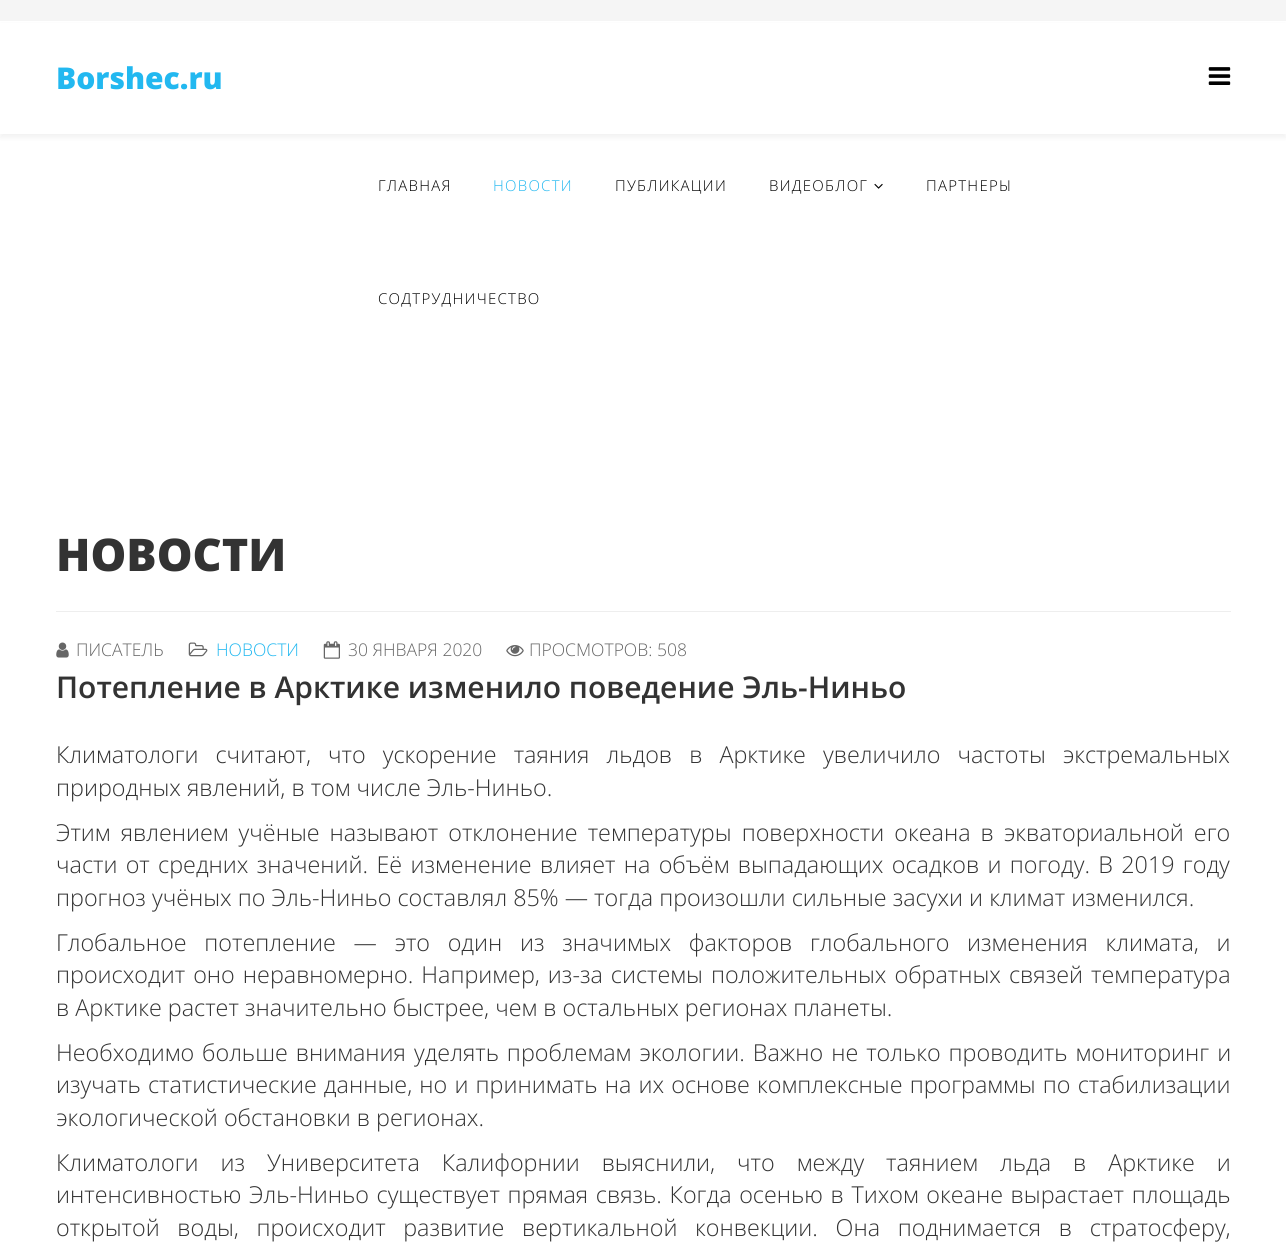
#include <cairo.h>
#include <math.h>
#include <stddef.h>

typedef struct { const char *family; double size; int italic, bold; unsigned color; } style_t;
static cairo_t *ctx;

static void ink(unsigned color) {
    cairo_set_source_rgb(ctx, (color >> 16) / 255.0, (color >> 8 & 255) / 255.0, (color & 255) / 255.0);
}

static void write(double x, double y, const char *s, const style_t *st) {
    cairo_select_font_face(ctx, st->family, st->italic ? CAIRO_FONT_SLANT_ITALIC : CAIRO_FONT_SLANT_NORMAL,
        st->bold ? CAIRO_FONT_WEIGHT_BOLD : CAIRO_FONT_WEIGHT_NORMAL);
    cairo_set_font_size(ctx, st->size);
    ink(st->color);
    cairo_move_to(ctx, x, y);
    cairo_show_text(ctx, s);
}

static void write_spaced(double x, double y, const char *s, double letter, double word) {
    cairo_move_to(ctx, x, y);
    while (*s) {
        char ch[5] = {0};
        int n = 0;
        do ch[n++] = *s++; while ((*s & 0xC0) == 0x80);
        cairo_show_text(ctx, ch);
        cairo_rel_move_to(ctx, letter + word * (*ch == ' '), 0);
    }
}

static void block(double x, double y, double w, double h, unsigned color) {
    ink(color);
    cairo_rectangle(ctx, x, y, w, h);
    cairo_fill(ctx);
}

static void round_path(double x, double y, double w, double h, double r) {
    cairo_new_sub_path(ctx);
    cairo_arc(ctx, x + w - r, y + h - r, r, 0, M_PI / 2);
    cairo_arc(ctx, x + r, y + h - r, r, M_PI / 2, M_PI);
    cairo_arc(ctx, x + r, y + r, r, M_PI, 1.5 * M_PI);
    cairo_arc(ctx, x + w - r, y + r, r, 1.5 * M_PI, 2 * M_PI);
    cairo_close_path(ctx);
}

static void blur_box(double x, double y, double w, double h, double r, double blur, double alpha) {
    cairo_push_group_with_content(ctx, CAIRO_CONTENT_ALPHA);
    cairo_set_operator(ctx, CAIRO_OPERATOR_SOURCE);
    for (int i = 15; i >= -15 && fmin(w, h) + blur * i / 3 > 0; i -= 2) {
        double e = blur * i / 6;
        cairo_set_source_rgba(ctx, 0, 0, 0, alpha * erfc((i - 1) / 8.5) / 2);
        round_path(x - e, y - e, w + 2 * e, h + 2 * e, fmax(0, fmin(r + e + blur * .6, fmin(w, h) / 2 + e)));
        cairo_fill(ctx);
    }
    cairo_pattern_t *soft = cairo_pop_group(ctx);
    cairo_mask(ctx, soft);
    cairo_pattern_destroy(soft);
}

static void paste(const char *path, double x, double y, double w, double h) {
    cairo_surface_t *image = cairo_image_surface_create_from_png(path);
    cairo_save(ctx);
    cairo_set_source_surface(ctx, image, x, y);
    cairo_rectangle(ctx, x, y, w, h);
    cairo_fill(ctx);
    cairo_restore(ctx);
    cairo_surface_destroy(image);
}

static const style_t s1 = {"Open Sans ExtraBold", 30, 0, 0, 0x22b8f0};
static const style_t s2 = {"Open Sans ExtraBold", 45, 0, 0, 0x333333};
static const style_t s3 = {"Open Sans Light", 17.5, 0, 0, 0x666666};
static const style_t s4 = {"Open Sans Light", 17.5, 0, 0, 0x22b8f0};
static const style_t s5 = {"Open Sans SemiBold", 30, 0, 0, 0x333333};
static const style_t s6 = {"Open Sans Light", 23.33, 0, 0, 0x333333};

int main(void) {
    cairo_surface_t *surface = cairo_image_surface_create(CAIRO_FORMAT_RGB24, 1286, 1249);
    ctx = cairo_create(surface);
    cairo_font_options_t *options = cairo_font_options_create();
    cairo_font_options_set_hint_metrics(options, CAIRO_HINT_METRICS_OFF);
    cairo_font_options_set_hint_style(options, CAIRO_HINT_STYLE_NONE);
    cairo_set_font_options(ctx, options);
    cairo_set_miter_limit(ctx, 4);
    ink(0xffffff);
    cairo_paint(ctx);
    block(0, 0, 1286, 21, 0xf5f5f5);
    ink(0x000000);
    blur_box(0, 25, 1286, 113, 0, 2, 0.05);
    block(0, 23, 1286, 111, 0xffffff);
    write(56, 89, "Borshec.ru", &s1);
    paste("pic1.png", 1208, 67, 23, 18);
    cairo_select_font_face(ctx, "Open Sans Light", CAIRO_FONT_SLANT_NORMAL, CAIRO_FONT_WEIGHT_NORMAL);
    cairo_set_font_size(ctx, 15);
    ink(0x000000);
    write_spaced(378, 191, "ГЛАВНАЯ", 1.25, 0);
    ink(0x22b8f0);
    write_spaced(493, 191, "НОВОСТИ", 1.25, 0);
    ink(0x000000);
    write_spaced(615, 191, "ПУБЛИКАЦИИ", 1.25, 0);
    write_spaced(769, 191, "ВИДЕОБЛОГ", 1.25, 0);
    paste("pic2.png", 874, 183, 9, 6);
    write_spaced(926, 191, "ПАРТНЕРЫ", 1.25, 0);
    write_spaced(378, 304, "СОДТРУДНИЧЕСТВО", 1.25, 0);
    block(56, 611, 1175, 1, 0xeeeeee);
    write(56, 571, "НОВОСТИ", &s2);
    paste("pic3.png", 56, 642, 13, 16);
    write(76, 656, "ПИСАТЕЛЬ", &s3);
    paste("pic4.png", 188, 642, 20, 15);
    write(216, 656, "НОВОСТИ", &s4);
    paste("pic5.png", 323, 641, 17, 18);
    write(348, 656, "30 ЯНВАРЯ 2020", &s3);
    paste("pic6.png", 506, 645, 18, 12);
    write(529, 656, "ПРОСМОТРОВ: 508", &s3);
    write(56, 698, "Потепление в Арктике изменило поведение Эль-Ниньо", &s5);
    cairo_select_font_face(ctx, "Open Sans Light", CAIRO_FONT_SLANT_NORMAL, CAIRO_FONT_WEIGHT_NORMAL);
    cairo_set_font_size(ctx, 23.33);
    write_spaced(56, 763, "Климатологи считают, что ускорение таяния льдов в Арктике увеличило частоты экстремальных", 0, 11);
    write(56, 796, "природных явлений, в том числе Эль-Ниньо.", &s6);
    write_spaced(56, 841, "Этим явлением учёные называют отклонение температуры поверхности океана в экваториальной его", 0, 4);
    write_spaced(56, 873, "части от средних значений. Её изменение влияет на объём выпадающих осадков и погоду. В 2019 году", 0, 2.25);
    write(56, 906, "прогноз учёных по Эль-Ниньо составлял 85% — тогда произошли сильные засухи и климат изменился.", &s6);
    write_spaced(56, 951, "Глобальное потепление — это один из значимых факторов глобального изменения климата, и", 0, 11.6);
    write_spaced(56, 983, "происходит оно неравномерно. Например, из-за системы положительных обратных связей температура", 0, 2);
    write(56, 1016, "в Арктике растет значительно быстрее, чем в остальных регионах планеты.", &s6);
    write_spaced(56, 1061, "Необходимо больше внимания уделять проблемам экологии. Важно не только проводить мониторинг и", 0, 1.9);
    write_spaced(56, 1093, "изучать статистические данные, но и принимать на их основе комплексные программы по стабилизации", 0, 1.1);
    write(56, 1126, "экологической обстановки в регионах.", &s6);
    write_spaced(56, 1171, "Климатологи из Университета Калифорнии выяснили, что между таянием льда в Арктике и", 0, 15.9);
    write_spaced(56, 1203, "интенсивностью Эль-Ниньо существует прямая связь. Когда осенью в Тихом океане вырастает площадь", 0, 1.6);
    write_spaced(56, 1236, "открытой воды, происходит развитие вертикальной конвекции. Она поднимается в стратосферу,", 0, 11.6);
    cairo_surface_write_to_png(surface, "screenshot.png");
    cairo_font_options_destroy(options);
    cairo_destroy(ctx);
    cairo_surface_destroy(surface);
    return 0;
}
